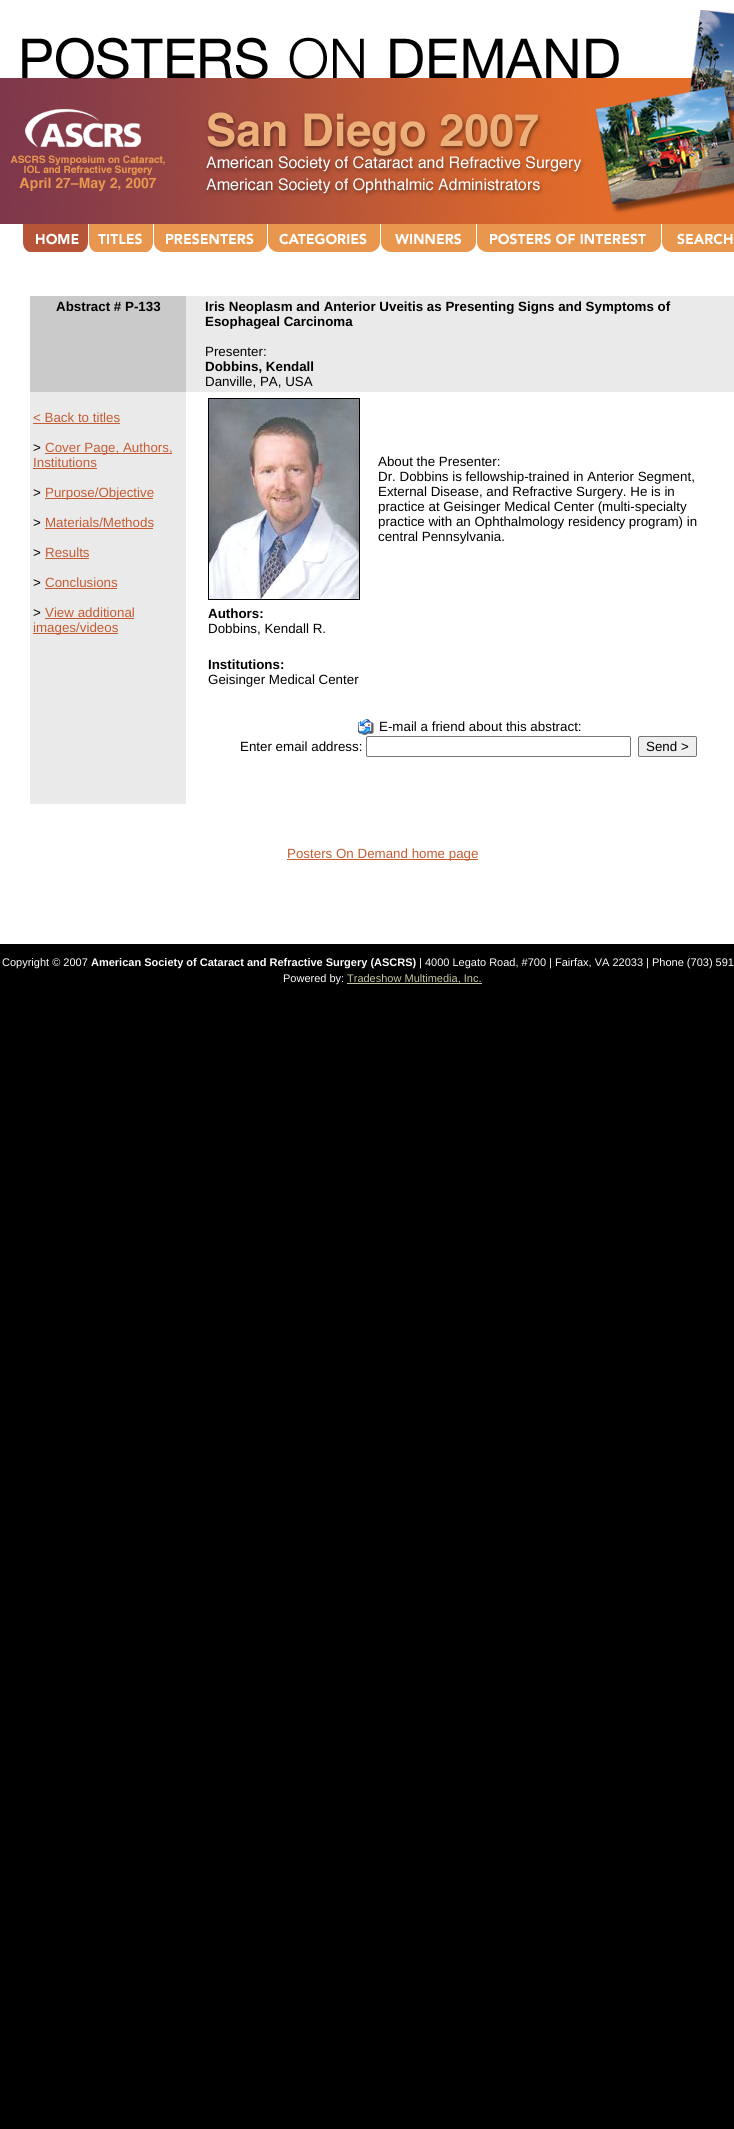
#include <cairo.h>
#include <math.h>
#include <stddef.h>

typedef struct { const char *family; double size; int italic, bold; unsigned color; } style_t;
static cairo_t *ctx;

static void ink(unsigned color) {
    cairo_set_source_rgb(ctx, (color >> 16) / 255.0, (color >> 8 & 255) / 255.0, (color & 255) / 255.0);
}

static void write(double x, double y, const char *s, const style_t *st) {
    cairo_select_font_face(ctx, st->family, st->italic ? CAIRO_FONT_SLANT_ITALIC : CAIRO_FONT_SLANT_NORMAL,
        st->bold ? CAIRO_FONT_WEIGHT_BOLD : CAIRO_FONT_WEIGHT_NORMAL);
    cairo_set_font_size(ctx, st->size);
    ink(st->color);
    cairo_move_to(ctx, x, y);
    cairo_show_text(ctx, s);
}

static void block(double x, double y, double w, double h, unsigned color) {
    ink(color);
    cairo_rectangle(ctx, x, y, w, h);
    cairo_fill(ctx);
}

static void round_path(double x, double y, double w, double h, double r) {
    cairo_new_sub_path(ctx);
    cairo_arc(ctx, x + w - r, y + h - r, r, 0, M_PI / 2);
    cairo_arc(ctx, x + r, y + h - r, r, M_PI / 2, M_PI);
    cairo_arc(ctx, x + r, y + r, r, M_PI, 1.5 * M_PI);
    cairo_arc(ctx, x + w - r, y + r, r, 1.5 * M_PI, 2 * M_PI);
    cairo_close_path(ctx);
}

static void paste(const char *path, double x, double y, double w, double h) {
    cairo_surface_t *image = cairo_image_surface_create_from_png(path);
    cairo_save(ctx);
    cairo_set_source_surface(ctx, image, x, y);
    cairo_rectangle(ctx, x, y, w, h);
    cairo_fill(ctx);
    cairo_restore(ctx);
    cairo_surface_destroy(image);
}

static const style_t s1 = {"Liberation Sans", 13.35, 0, 1, 0x000000};
static const style_t s2 = {"Liberation Sans", 13.35, 0, 0, 0x000000};
static const style_t s3 = {"Liberation Sans", 13.35, 0, 0, 0xc45c34};
static const style_t s4 = {"Liberation Sans", 11, 0, 0, 0xffffff};
static const style_t s5 = {"Liberation Sans", 11, 0, 1, 0xffffff};
static const style_t s6 = {"Liberation Sans", 11, 0, 0, 0xc6c79f};

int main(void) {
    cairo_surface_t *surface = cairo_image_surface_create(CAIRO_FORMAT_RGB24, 734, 2129);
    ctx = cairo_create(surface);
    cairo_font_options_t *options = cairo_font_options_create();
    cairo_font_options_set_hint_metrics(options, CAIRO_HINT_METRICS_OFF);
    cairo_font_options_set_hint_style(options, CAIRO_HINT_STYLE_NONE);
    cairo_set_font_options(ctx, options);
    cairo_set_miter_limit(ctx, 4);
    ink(0x000000);
    cairo_paint(ctx);
    paste("pic1.png", 0, 0, 734, 224);
    paste("pic2.png", 0, 224, 88, 31);
    paste("pic3.png", 88, 224, 65, 31);
    paste("pic4.png", 153, 224, 114, 31);
    paste("pic5.png", 267, 224, 113, 31);
    paste("pic6.png", 380, 224, 96, 31);
    paste("pic7.png", 476, 224, 185, 31);
    paste("pic8.png", 661, 224, 73, 31);
    block(0, 255, 734, 689, 0xffffff);
    block(30, 296, 156, 96, 0xcacaca);
    write(56, 311, "Abstract # P-133", &s1);
    block(186, 296, 548, 96, 0xeaeaea);
    write(205, 311, "Iris Neoplasm and Anterior Uveitis as Presenting Signs and Symptoms of", &s1);
    write(205, 326, "Esophageal Carcinoma", &s1);
    write(205, 356, "Presenter:", &s2);
    write(205, 371, "Dobbins, Kendall", &s1);
    write(205, 386, "Danville, PA, USA", &s2);
    block(30, 392, 156, 412, 0xeaeaea);
    write(33, 422, "< Back to titles", &s3);
    block(33, 423, 87, 1, 0xc45c34);
    write(33, 452, ">", &s2);
    block(45, 453, 127, 1, 0xc45c34);
    write(45, 452, "Cover Page, Authors,", &s3);
    write(33, 467, "Institutions", &s3);
    block(33, 468, 64, 1, 0xc45c34);
    write(33, 497, ">", &s2);
    block(45, 498, 108, 1, 0xc45c34);
    write(45, 497, "Purpose/Objective", &s3);
    write(33, 527, ">", &s2);
    write(45, 527, "Materials/Methods", &s3);
    block(45, 528, 108, 1, 0xc45c34);
    write(33, 557, ">", &s2);
    write(45, 557, "Results", &s3);
    block(45, 558, 44, 1, 0xc45c34);
    write(33, 587, ">", &s2);
    write(45, 587, "Conclusions", &s3);
    block(45, 588, 72, 1, 0xc45c34);
    write(33, 617, ">", &s2);
    write(45, 617, "View additional", &s3);
    block(45, 618, 89, 1, 0xc45c34);
    block(33, 633, 85, 1, 0xc45c34);
    write(33, 632, "images/videos", &s3);
    cairo_rectangle(ctx, 208.5, 398.5, 151, 201);
    ink(0x000000);
    cairo_set_line_width(ctx, 1);
    cairo_stroke(ctx);
    paste("pic9.png", 209, 399, 150, 200);
    write(378, 466, "About the Presenter:", &s2);
    write(378, 481, "Dr. Dobbins is fellowship-trained in Anterior Segment,", &s2);
    write(378, 496, "External Disease, and Refractive Surgery. He is in", &s2);
    write(378, 511, "practice at Geisinger Medical Center (multi-specialty", &s2);
    write(378, 526, "practice with an Ophthalmology residency program) in", &s2);
    write(378, 541, "central Pennsylvania.", &s2);
    write(208, 618, "Authors:", &s1);
    write(208, 633, "Dobbins, Kendall R.", &s2);
    write(208, 669, "Institutions:", &s1);
    write(208, 684, "Geisinger Medical Center", &s2);
    paste("pic10.png", 358, 719, 16, 16);
    write(379, 731, "E-mail a friend about this abstract:", &s2);
    write(240, 751, "Enter email address:", &s2);
    round_path(366.5, 736.5, 264, 20, 1.5);
    ink(0x767676);
    cairo_stroke(ctx);
    ink(0xefefef);
    round_path(638.5, 736.5, 58, 20, 1.5);
    cairo_fill_preserve(ctx);
    ink(0x767676);
    cairo_stroke(ctx);
    write(646, 751, "Send >", &s2);
    block(287, 859, 191, 1, 0xc45c34);
    write(287, 858, "Posters On Demand home page", &s3);
    write(2, 966, "Copyright © 2007", &s4);
    write(91, 966, "American Society of Cataract and Refractive Surgery (ASCRS)", &s5);
    write(419, 966, "| 4000 Legato Road, #700 | Fairfax, VA 22033 | Phone (703) 591", &s4);
    write(283, 982, "Powered by:", &s4);
    block(347, 983, 135, 1, 0xc6c79f);
    write(347, 982, "Tradeshow Multimedia, Inc.", &s6);
    cairo_surface_write_to_png(surface, "screenshot.png");
    cairo_font_options_destroy(options);
    cairo_destroy(ctx);
    cairo_surface_destroy(surface);
    return 0;
}
